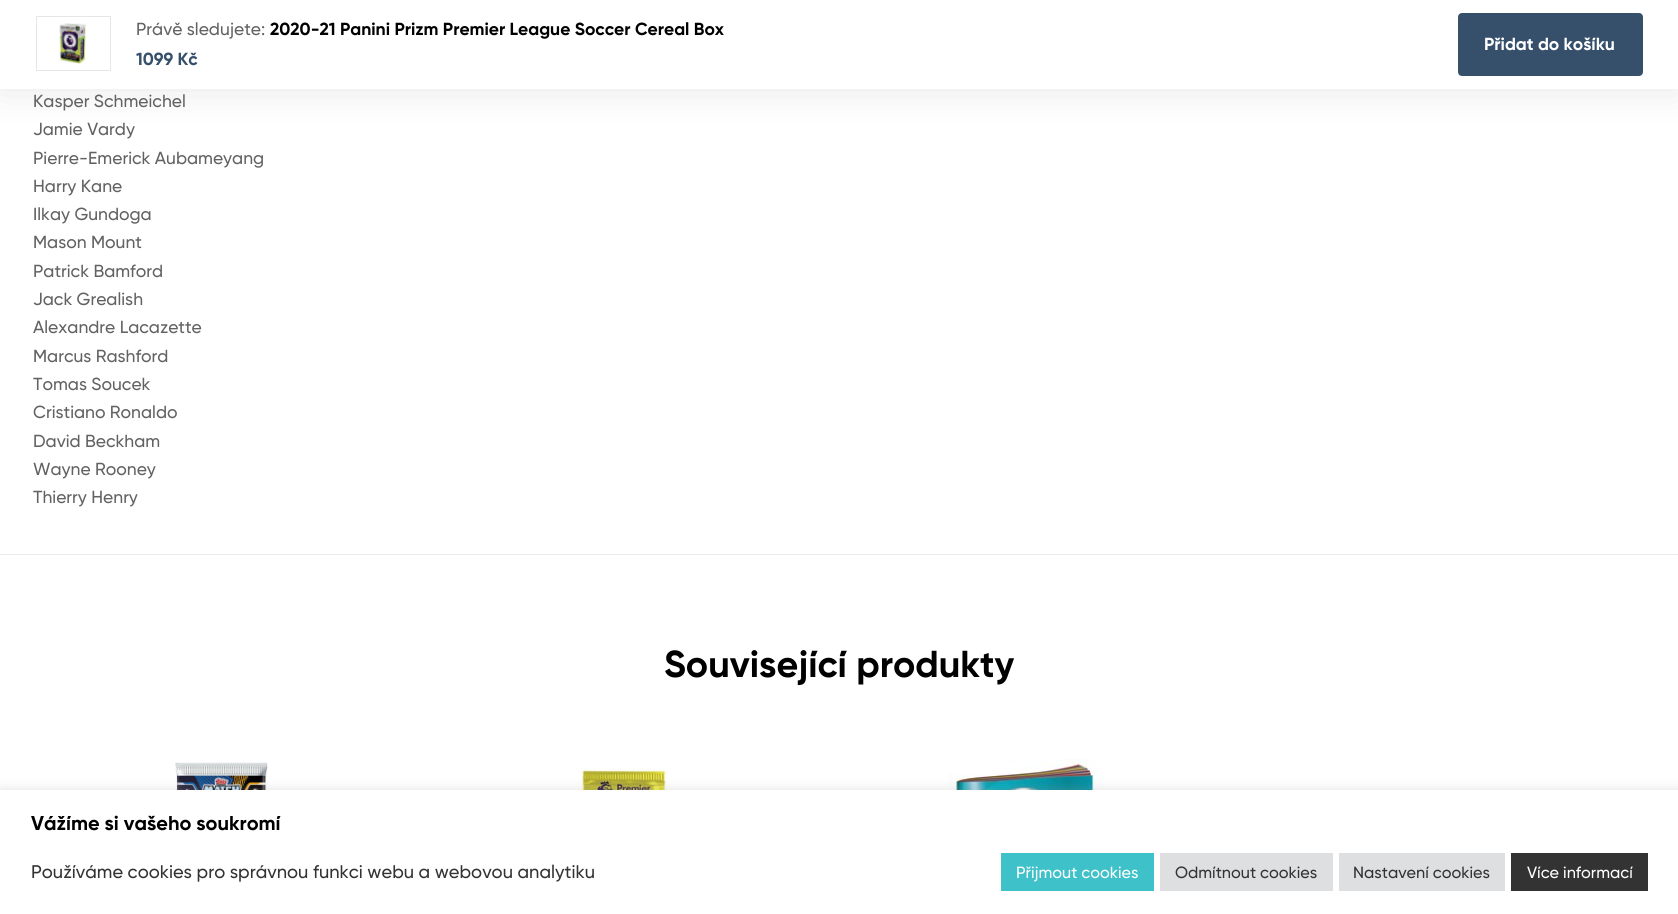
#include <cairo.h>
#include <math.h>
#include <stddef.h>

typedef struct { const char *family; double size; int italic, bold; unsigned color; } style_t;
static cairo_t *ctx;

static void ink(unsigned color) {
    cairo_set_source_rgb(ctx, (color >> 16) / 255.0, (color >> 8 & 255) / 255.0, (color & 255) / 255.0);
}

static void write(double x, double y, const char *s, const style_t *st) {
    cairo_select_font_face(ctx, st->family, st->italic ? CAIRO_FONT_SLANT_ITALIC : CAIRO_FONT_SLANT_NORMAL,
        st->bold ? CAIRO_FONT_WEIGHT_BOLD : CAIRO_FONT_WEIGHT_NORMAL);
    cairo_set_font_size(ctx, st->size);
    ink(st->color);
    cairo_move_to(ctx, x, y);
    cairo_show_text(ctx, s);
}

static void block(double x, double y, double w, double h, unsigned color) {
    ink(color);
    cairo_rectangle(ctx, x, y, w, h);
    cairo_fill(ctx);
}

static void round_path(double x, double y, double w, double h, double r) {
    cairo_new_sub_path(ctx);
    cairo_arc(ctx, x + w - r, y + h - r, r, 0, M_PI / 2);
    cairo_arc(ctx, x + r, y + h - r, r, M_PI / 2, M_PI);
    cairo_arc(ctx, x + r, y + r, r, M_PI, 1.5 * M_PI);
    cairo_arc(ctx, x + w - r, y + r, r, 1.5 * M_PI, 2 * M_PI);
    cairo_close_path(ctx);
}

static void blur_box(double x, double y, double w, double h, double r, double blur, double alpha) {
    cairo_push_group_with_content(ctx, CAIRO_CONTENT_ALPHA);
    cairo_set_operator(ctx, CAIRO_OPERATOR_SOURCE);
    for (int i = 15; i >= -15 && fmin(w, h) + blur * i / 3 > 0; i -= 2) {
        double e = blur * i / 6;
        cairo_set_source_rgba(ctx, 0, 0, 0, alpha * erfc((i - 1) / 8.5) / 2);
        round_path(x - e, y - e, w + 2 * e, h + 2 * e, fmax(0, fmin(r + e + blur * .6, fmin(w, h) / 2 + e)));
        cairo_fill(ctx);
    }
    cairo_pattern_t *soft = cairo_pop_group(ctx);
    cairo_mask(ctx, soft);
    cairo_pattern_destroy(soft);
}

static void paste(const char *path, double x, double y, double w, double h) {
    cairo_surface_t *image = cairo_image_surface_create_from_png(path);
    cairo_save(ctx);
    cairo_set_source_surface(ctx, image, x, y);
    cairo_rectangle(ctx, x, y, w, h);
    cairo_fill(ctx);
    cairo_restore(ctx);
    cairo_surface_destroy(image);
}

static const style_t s1 = {"Gilroy Medium", 17.5, 0, 0, 0x626262};
static const style_t s2 = {"Gilroy", 17.5, 0, 1, 0x000000};
static const style_t s3 = {"Gilroy", 17.5, 0, 1, 0x364f6b};
static const style_t s4 = {"Gilroy", 17.5, 0, 1, 0xffffff};
static const style_t s5 = {"Gilroy", 37.5, 0, 1, 0x000000};
static const style_t s6 = {"Gilroy", 20, 0, 1, 0x000000};
static const style_t s7 = {"Gilroy Medium", 18.3, 0, 0, 0x333333};
static const style_t s8 = {"Gilroy Medium", 16.25, 0, 0, 0xffffff};
static const style_t s9 = {"Gilroy Medium", 16.25, 0, 0, 0x333333};

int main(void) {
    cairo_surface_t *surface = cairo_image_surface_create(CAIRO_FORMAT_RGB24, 1678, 914);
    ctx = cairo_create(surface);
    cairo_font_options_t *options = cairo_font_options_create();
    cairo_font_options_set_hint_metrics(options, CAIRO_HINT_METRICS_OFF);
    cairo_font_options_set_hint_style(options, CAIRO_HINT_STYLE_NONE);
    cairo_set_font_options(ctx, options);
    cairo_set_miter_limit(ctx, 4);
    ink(0xffffff);
    cairo_paint(ctx);
    ink(0x000000);
    blur_box(0, 0, 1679, 89, 0, 19, 0.1);
    block(0, 0, 1678, 89, 0xffffff);
    cairo_rectangle(ctx, 36.5, 16.5, 74, 54);
    ink(0xe6e6e6);
    cairo_set_line_width(ctx, 1);
    cairo_stroke(ctx);
    paste("pic1.png", 59, 23, 27, 41);
    write(136, 35, "Právě sledujete:", &s1);
    write(270, 35, "2020-21 Panini Prizm Premier League Soccer Cereal Box", &s2);
    write(136, 65, "1099 Kč", &s3);
    round_path(1459.5, 14.5, 182, 60, 2.5);
    cairo_fill_preserve(ctx);
    cairo_set_line_width(ctx, 3);
    cairo_stroke(ctx);
    write(1484, 50, "Přidat do košíku", &s4);
    write(33, 107, "Kasper Schmeichel", &s1);
    write(33, 135, "Jamie Vardy", &s1);
    write(33, 164, "Pierre-Emerick Aubameyang", &s1);
    write(33, 192, "Harry Kane", &s1);
    write(33, 220, "Ilkay Gundoga", &s1);
    write(33, 248, "Mason Mount", &s1);
    write(33, 277, "Patrick Bamford", &s1);
    write(33, 305, "Jack Grealish", &s1);
    write(33, 333, "Alexandre Lacazette", &s1);
    write(33, 362, "Marcus Rashford", &s1);
    write(33, 390, "Tomas Soucek", &s1);
    write(33, 418, "Cristiano Ronaldo", &s1);
    write(33, 447, "David Beckham", &s1);
    write(33, 475, "Wayne Rooney", &s1);
    write(33, 503, "Thierry Henry", &s1);
    block(0, 554, 1678, 1, 0xebebeb);
    write(664, 677, "Související produkty", &s5);
    paste("pic2.png", 175, 762, 93, 28);
    paste("pic3.png", 577, 767, 93, 23);
    paste("pic4.png", 948, 759, 155, 31);
    ink(0xacabab);
    blur_box(0, 789, 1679, 125, 0, 6, 0.3);
    block(0, 790, 1678, 124, 0xffffff);
    write(31, 830, "Vážíme si vašeho soukromí", &s6);
    write(31, 878, "Používáme cookies pro správnou funkci webu a webovou analytiku", &s7);
    block(1001, 853, 153, 38, 0x3fc1c9);
    write(1016, 878, "Přijmout cookies", &s8);
    block(1160, 853, 173, 38, 0xdedfe0);
    write(1175, 878, "Odmítnout cookies", &s9);
    block(1339, 853, 166, 38, 0xdedfe0);
    write(1353, 878, "Nastavení cookies", &s9);
    block(1511, 853, 137, 38, 0x333333);
    write(1527, 878, "Více informací", &s8);
    cairo_surface_write_to_png(surface, "screenshot.png");
    cairo_font_options_destroy(options);
    cairo_destroy(ctx);
    cairo_surface_destroy(surface);
    return 0;
}
